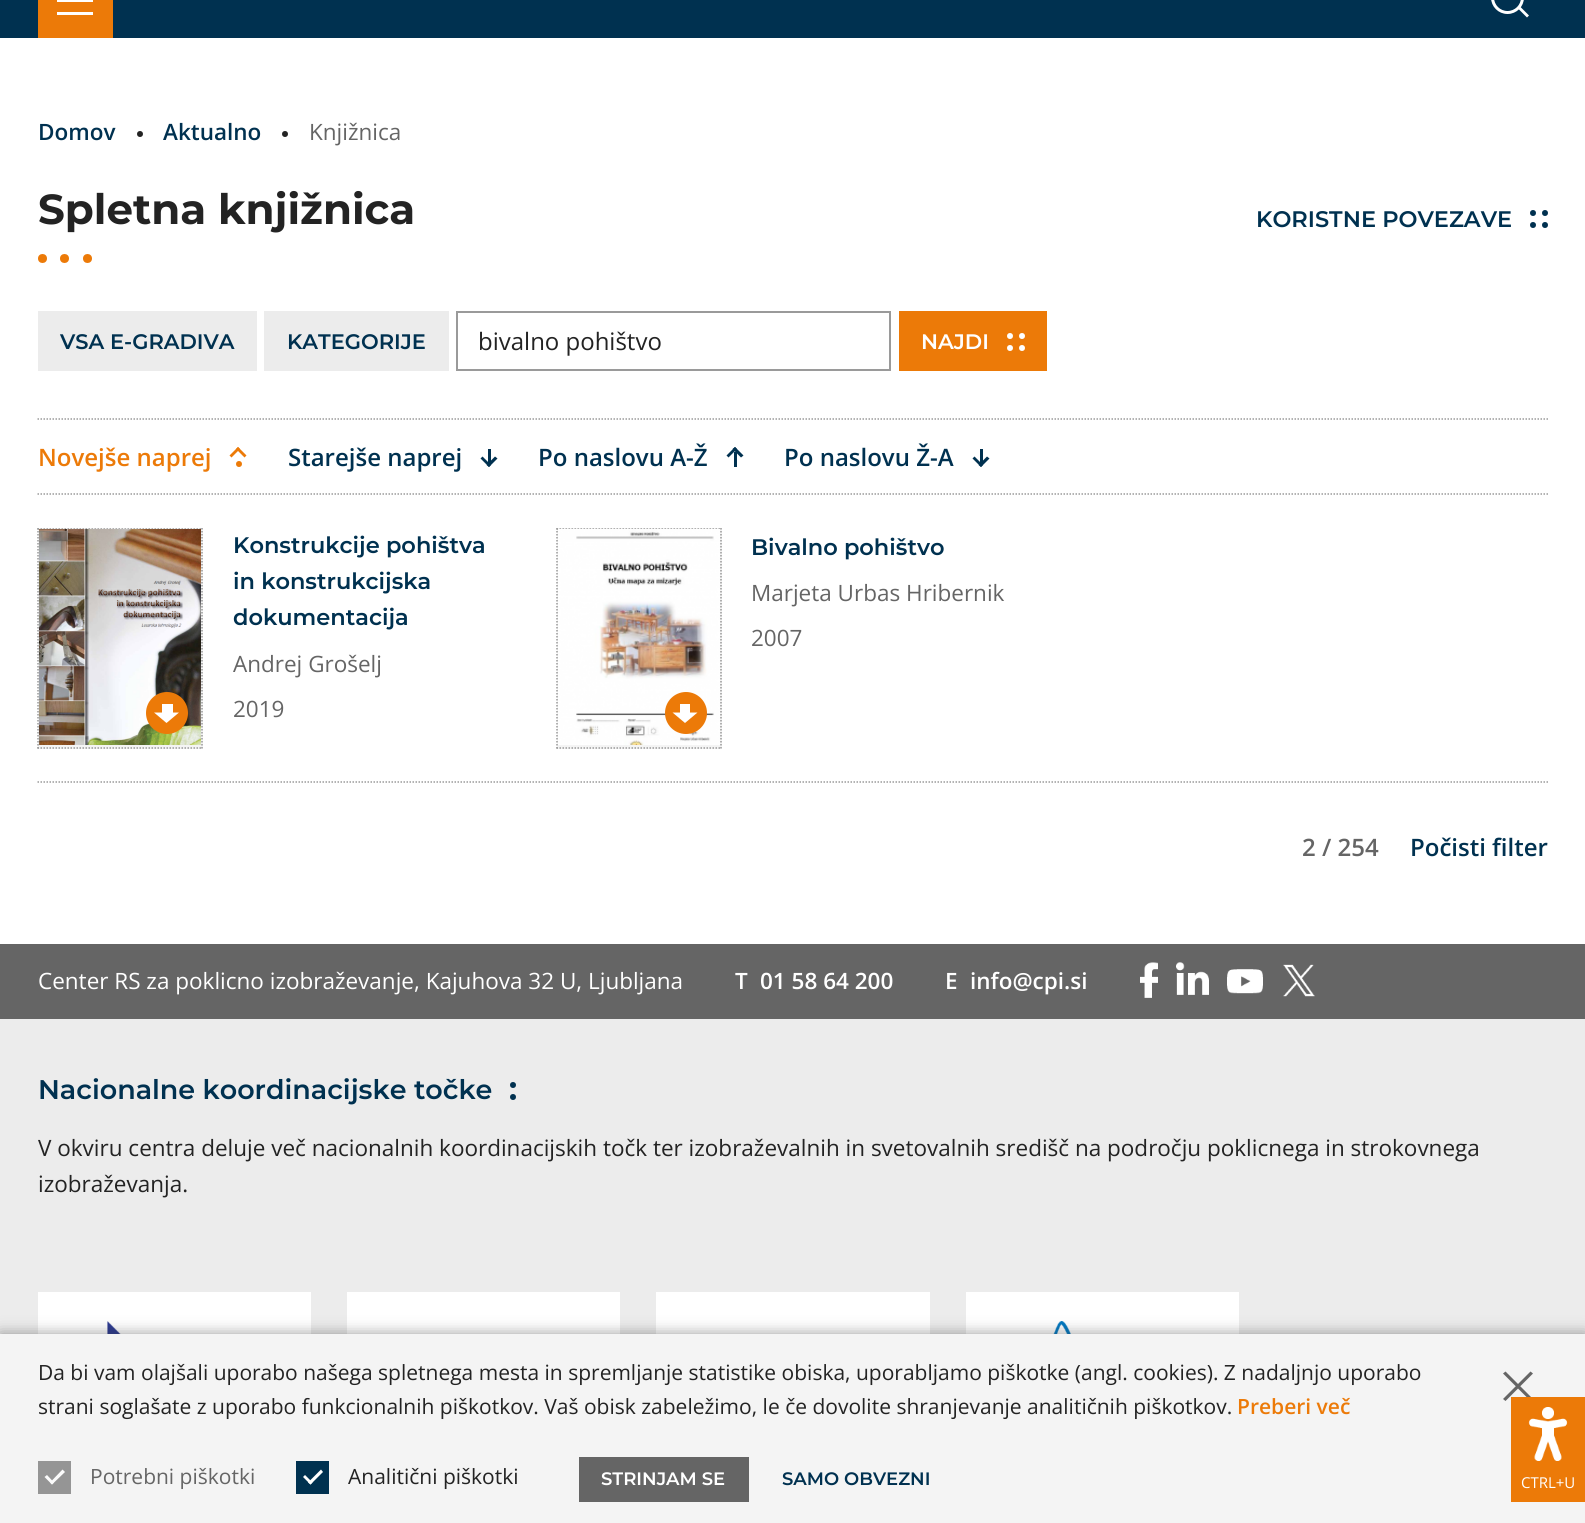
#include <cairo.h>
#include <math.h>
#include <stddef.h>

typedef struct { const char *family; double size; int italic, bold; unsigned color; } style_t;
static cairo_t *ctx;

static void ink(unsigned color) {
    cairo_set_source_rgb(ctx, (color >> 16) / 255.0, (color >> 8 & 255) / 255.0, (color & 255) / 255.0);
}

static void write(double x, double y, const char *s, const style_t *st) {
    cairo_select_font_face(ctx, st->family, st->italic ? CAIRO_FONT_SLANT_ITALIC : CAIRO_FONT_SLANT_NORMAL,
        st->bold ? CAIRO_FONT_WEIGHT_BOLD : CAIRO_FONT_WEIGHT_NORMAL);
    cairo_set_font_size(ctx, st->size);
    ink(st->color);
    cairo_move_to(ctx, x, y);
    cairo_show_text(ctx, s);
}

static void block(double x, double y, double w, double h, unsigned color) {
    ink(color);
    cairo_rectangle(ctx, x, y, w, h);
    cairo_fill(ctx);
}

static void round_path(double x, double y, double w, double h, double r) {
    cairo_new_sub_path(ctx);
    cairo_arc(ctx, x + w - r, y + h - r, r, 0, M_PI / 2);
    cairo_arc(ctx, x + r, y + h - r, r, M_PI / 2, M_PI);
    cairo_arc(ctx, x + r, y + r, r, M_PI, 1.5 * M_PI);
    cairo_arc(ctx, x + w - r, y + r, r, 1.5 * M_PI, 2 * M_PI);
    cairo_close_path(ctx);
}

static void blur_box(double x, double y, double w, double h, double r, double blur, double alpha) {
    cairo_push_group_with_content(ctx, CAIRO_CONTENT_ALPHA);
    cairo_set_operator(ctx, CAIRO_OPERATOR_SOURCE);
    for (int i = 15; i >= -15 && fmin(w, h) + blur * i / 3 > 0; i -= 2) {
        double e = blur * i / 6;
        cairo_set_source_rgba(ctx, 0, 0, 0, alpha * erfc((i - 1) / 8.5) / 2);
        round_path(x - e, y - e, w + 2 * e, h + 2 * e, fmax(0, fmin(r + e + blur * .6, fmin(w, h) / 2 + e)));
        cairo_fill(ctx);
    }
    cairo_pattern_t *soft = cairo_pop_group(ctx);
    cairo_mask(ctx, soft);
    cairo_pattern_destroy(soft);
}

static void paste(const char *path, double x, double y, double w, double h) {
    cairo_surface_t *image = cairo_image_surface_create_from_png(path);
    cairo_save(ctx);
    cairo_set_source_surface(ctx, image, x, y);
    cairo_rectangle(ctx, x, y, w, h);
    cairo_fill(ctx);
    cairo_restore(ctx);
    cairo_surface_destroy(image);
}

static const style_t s1 = {"Open Sans SemiBold", 22.5, 0, 0, 0x003150};
static const style_t s2 = {"Open Sans", 22.5, 0, 0, 0x656565};
static const style_t s3 = {"Montserrat", 42, 0, 1, 0x232323};
static const style_t s4 = {"Montserrat SemiBold", 22.5, 0, 0, 0x003150};
static const style_t s5 = {"Montserrat SemiBold", 21, 0, 0, 0x003150};
static const style_t s6 = {"Open Sans", 24, 0, 0, 0x232323};
static const style_t s7 = {"Montserrat SemiBold", 21, 0, 0, 0xffffff};
static const style_t s8 = {"Open Sans SemiBold", 24, 0, 0, 0xec7a08};
static const style_t s9 = {"Open Sans SemiBold", 24, 0, 0, 0x003150};
static const style_t s10 = {"Open Sans SemiBold", 24, 0, 0, 0x656565};
static const style_t s11 = {"Open Sans", 22.5, 0, 0, 0xffffff};
static const style_t s12 = {"Open Sans SemiBold", 22.5, 0, 0, 0xffffff};
static const style_t s13 = {"Montserrat SemiBold", 27, 0, 0, 0x003150};
static const style_t s14 = {"Open Sans", 22.5, 0, 0, 0x232323};
static const style_t s15 = {"Open Sans", 21, 0, 0, 0x232323};
static const style_t s16 = {"Open Sans SemiBold", 21, 0, 0, 0xec7a08};
static const style_t s17 = {"Open Sans", 21, 0, 0, 0x656565};
static const style_t s18 = {"Montserrat SemiBold", 18, 0, 0, 0xffffff};
static const style_t s19 = {"Montserrat SemiBold", 18, 0, 0, 0x003150};
static const style_t s20 = {"Open Sans", 15, 0, 0, 0xffffff};

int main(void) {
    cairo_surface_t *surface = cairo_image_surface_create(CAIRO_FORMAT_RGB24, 1585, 1523);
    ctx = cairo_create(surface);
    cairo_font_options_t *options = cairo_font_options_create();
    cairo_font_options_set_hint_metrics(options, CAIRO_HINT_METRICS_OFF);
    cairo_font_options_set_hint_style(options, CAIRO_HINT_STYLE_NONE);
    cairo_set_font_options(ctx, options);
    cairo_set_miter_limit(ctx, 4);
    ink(0xffffff);
    cairo_paint(ctx);
    block(0, 0, 1585, 38, 0x003150);
    block(38, 0, 75, 38, 0xec7a08);
    block(57, 0, 36, 2, 0xffffff);
    block(57, 12, 36, 3, 0xffffff);
    cairo_arc(ctx, 1507.5, -2.5, 15, 0, 2 * M_PI);
    cairo_set_line_width(ctx, 3);
    cairo_stroke(ctx);
    cairo_new_path(ctx);
    cairo_move_to(ctx, 1519.5, 6);
    cairo_line_to(ctx, 1529, 15.5);
    cairo_line_to(ctx, 1527, 17.5);
    cairo_line_to(ctx, 1517.5, 8);
    cairo_close_path(ctx);
    cairo_fill(ctx);
    write(38, 140, "Domov", &s1);
    ink(0x232323);
    cairo_new_path(ctx);
    cairo_arc(ctx, 140, 134, 3, 0, 2 * M_PI);
    cairo_fill(ctx);
    write(163, 140, "Aktualno", &s1);
    ink(0x232323);
    cairo_new_path(ctx);
    cairo_arc(ctx, 285, 134, 3, 0, 2 * M_PI);
    cairo_fill(ctx);
    write(309, 140, "Knjižnica", &s2);
    write(38, 224, "Spletna knjižnica", &s3);
    ink(0xec7a08);
    cairo_new_path(ctx);
    cairo_arc(ctx, 64.5, 258.5, 4.5, 0, 2 * M_PI);
    cairo_fill(ctx);
    cairo_arc(ctx, 42.5, 258.5, 4.5, 0, 2 * M_PI);
    cairo_fill(ctx);
    cairo_arc(ctx, 87.5, 258.5, 4.5, 0, 2 * M_PI);
    cairo_fill(ctx);
    write(1256, 227, "KORISTNE POVEZAVE", &s4);
    cairo_new_path(ctx);
    cairo_arc(ctx, 1533, 213, 3, 0, 2 * M_PI);
    cairo_fill(ctx);
    cairo_arc(ctx, 1545, 213, 3, 0, 2 * M_PI);
    cairo_fill(ctx);
    cairo_arc(ctx, 1533, 225, 3, 0, 2 * M_PI);
    cairo_fill(ctx);
    cairo_arc(ctx, 1545, 225, 3, 0, 2 * M_PI);
    cairo_fill(ctx);
    block(38, 311, 219, 60, 0xececec);
    write(60, 349, "VSA E-GRADIVA", &s5);
    block(264, 311, 185, 60, 0xececec);
    write(287, 349, "KATEGORIJE", &s5);
    cairo_rectangle(ctx, 457, 312, 433, 58);
    ink(0x9a9a9a);
    cairo_set_line_width(ctx, 2);
    cairo_stroke(ctx);
    write(478, 350, "bivalno pohištvo", &s6);
    block(899, 311, 148, 60, 0xec7a08);
    write(921, 349, "NAJDI", &s7);
    cairo_new_path(ctx);
    cairo_arc(ctx, 1010, 336, 3, 0, 2 * M_PI);
    cairo_fill(ctx);
    cairo_arc(ctx, 1022, 336, 3, 0, 2 * M_PI);
    cairo_fill(ctx);
    cairo_arc(ctx, 1010, 348, 3, 0, 2 * M_PI);
    cairo_fill(ctx);
    cairo_arc(ctx, 1022, 348, 3, 0, 2 * M_PI);
    cairo_fill(ctx);
    cairo_new_path(ctx);
    cairo_move_to(ctx, 37.5, 419);
    cairo_line_to(ctx, 1548, 419);
    ink(0x9a9a9a);
    cairo_set_line_width(ctx, 1.5);
    cairo_set_dash(ctx, (double[]){1.5, 1.5}, 2, 0);
    cairo_stroke(ctx);
    write(38, 466, "Novejše naprej", &s8);
    cairo_new_path(ctx);
    cairo_move_to(ctx, 229.5, 455.5);
    cairo_line_to(ctx, 238, 447);
    cairo_line_to(ctx, 240, 449);
    cairo_line_to(ctx, 231.5, 457.5);
    cairo_close_path(ctx);
    cairo_fill(ctx);
    cairo_new_path(ctx);
    cairo_move_to(ctx, 236, 449);
    cairo_line_to(ctx, 238, 447);
    cairo_line_to(ctx, 246.5, 455.5);
    cairo_line_to(ctx, 244.5, 457.5);
    cairo_close_path(ctx);
    cairo_fill(ctx);
    cairo_arc(ctx, 239, 464, 3, 0, 2 * M_PI);
    cairo_fill(ctx);
    write(288, 466, "Starejše naprej", &s9);
    block(488, 449, 3, 15, 0x003150);
    cairo_new_path(ctx);
    cairo_move_to(ctx, 497.5, 458.5);
    cairo_line_to(ctx, 489, 467);
    cairo_line_to(ctx, 486.5, 465);
    cairo_line_to(ctx, 495, 456.5);
    cairo_close_path(ctx);
    cairo_fill(ctx);
    cairo_new_path(ctx);
    cairo_move_to(ctx, 491, 465);
    cairo_line_to(ctx, 489, 467);
    cairo_line_to(ctx, 480.5, 458.5);
    cairo_line_to(ctx, 482.5, 456.5);
    cairo_close_path(ctx);
    cairo_fill(ctx);
    write(538, 466, "Po naslovu A-Ž", &s9);
    block(734, 452, 3, 15, 0x003150);
    cairo_new_path(ctx);
    cairo_move_to(ctx, 726.5, 455.5);
    cairo_line_to(ctx, 735, 447);
    cairo_line_to(ctx, 737, 449);
    cairo_line_to(ctx, 728.5, 457.5);
    cairo_close_path(ctx);
    cairo_fill(ctx);
    cairo_new_path(ctx);
    cairo_move_to(ctx, 732.5, 449);
    cairo_line_to(ctx, 735, 447);
    cairo_line_to(ctx, 743.5, 455.5);
    cairo_line_to(ctx, 741, 457.5);
    cairo_close_path(ctx);
    cairo_fill(ctx);
    write(784, 466, "Po naslovu Ž-A", &s9);
    block(980, 449, 3, 15, 0x003150);
    cairo_new_path(ctx);
    cairo_move_to(ctx, 989.5, 458.5);
    cairo_line_to(ctx, 981, 467);
    cairo_line_to(ctx, 978.5, 465);
    cairo_line_to(ctx, 987, 456.5);
    cairo_close_path(ctx);
    cairo_fill(ctx);
    cairo_new_path(ctx);
    cairo_move_to(ctx, 983, 465);
    cairo_line_to(ctx, 981, 467);
    cairo_line_to(ctx, 972.5, 458.5);
    cairo_line_to(ctx, 974.5, 456.5);
    cairo_close_path(ctx);
    cairo_fill(ctx);
    cairo_new_path(ctx);
    cairo_move_to(ctx, 37.5, 494);
    cairo_line_to(ctx, 1548, 494);
    ink(0x9a9a9a);
    cairo_stroke(ctx);
    block(38, 528, 165, 221, 0xf4f4f4);
    cairo_new_path(ctx);
    cairo_move_to(ctx, 37.5, 529);
    cairo_line_to(ctx, 202.5, 529);
    ink(0x9a9a9a);
    cairo_stroke(ctx);
    cairo_new_path(ctx);
    cairo_move_to(ctx, 202, 528);
    cairo_line_to(ctx, 202, 748.5);
    cairo_stroke(ctx);
    cairo_new_path(ctx);
    cairo_move_to(ctx, 37.5, 748);
    cairo_line_to(ctx, 202.5, 748);
    cairo_stroke(ctx);
    cairo_new_path(ctx);
    cairo_move_to(ctx, 38, 528);
    cairo_line_to(ctx, 38, 748.5);
    cairo_stroke(ctx);
    paste("pic1.png", 39, 529, 162, 216);
    ink(0xec7a08);
    cairo_arc(ctx, 167, 713, 21, 0, 2 * M_PI);
    cairo_fill(ctx);
    block(162, 704, 11, 9, 0xffffff);
    cairo_new_path(ctx);
    cairo_move_to(ctx, 154, 712.5);
    cairo_line_to(ctx, 179, 712.5);
    cairo_line_to(ctx, 166.5, 723);
    cairo_close_path(ctx);
    cairo_fill(ctx);
    write(233, 553, "Konstrukcije pohištva", &s4);
    write(233, 589, "in konstrukcijska", &s4);
    write(233, 625, "dokumentacija", &s4);
    write(233, 672, "Andrej Grošelj", &s2);
    write(233, 717, "2019", &s2);
    block(557, 528, 165, 221, 0xf4f4f4);
    cairo_new_path(ctx);
    cairo_move_to(ctx, 556.5, 529);
    cairo_line_to(ctx, 721.5, 529);
    ink(0x9a9a9a);
    cairo_stroke(ctx);
    cairo_new_path(ctx);
    cairo_move_to(ctx, 721, 528);
    cairo_line_to(ctx, 721, 748.5);
    cairo_stroke(ctx);
    cairo_new_path(ctx);
    cairo_move_to(ctx, 556.5, 748);
    cairo_line_to(ctx, 721.5, 748);
    cairo_stroke(ctx);
    cairo_new_path(ctx);
    cairo_move_to(ctx, 557, 528);
    cairo_line_to(ctx, 557, 748.5);
    cairo_stroke(ctx);
    paste("pic2.png", 558, 529, 162, 216);
    ink(0xec7a08);
    cairo_arc(ctx, 686, 713, 21, 0, 2 * M_PI);
    cairo_fill(ctx);
    block(680, 704, 10, 9, 0xffffff);
    cairo_new_path(ctx);
    cairo_move_to(ctx, 672.5, 712.5);
    cairo_line_to(ctx, 697.5, 712.5);
    cairo_line_to(ctx, 685, 723);
    cairo_close_path(ctx);
    cairo_fill(ctx);
    write(751, 555, "Bivalno pohištvo", &s4);
    write(751, 601, "Marjeta Urbas Hribernik", &s2);
    write(751, 646, "2007", &s2);
    cairo_new_path(ctx);
    cairo_move_to(ctx, 37.5, 782);
    cairo_line_to(ctx, 1548, 782);
    ink(0x9a9a9a);
    cairo_stroke(ctx);
    write(1302, 856, "2 / 254", &s10);
    write(1410, 856, "Počisti filter", &s9);
    block(0, 944, 1585, 75, 0x656565);
    write(38, 989, "Center RS za poklicno izobraževanje, Kajuhova 32 U, Ljubljana", &s11);
    write(735, 989, "T", &s12);
    write(760, 989, "01 58 64 200", &s12);
    write(945, 989, "E", &s12);
    write(970, 989, "info@cpi.si", &s12);
    paste("pic3.png", 1140, 962, 18, 36);
    paste("pic4.png", 1176, 962, 33, 33);
    paste("pic5.png", 1227, 969, 36, 25);
    paste("pic6.png", 1283, 964, 32, 33);
    block(0, 1019, 1585, 315, 0xececec);
    write(38, 1099, "Nacionalne koordinacijske točke", &s13);
    cairo_new_path(ctx);
    cairo_arc(ctx, 513, 1085, 3, 0, 2 * M_PI);
    cairo_fill(ctx);
    cairo_arc(ctx, 513, 1097, 3, 0, 2 * M_PI);
    cairo_fill(ctx);
    write(38, 1156, "V okviru centra deluje več nacionalnih koordinacijskih točk ter izobraževalnih in svetovalnih središč na področju poklicnega in strokovnega", &s14);
    write(38, 1192, "izobraževanja.", &s14);
    block(38, 1292, 273, 42, 0xffffff);
    paste("pic7.png", 107, 1321, 14, 13);
    block(347, 1292, 273, 42, 0xffffff);
    block(656, 1292, 274, 42, 0xffffff);
    block(966, 1292, 273, 42, 0xffffff);
    paste("pic8.png", 1053, 1321, 18, 13);
    ink(0x323232);
    blur_box(0, 1334, 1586, 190, 0, 7.5, 0.5);
    block(0, 1334, 1585, 189, 0xf4f4f4);
    write(38, 1380, "Da bi vam olajšali uporabo našega spletnega mesta in spremljanje statistike obiska, uporabljamo piškotke (angl. cookies). Z nadaljnjo uporabo", &s15);
    write(38, 1414, "strani soglašate z uporabo funkcionalnih piškotkov. Vaš obisk zabeležimo, le če dovolite shranjevanje analitičnih piškotkov.", &s15);
    write(1237, 1414, "Preberi več", &s16);
    ink(0x656565);
    cairo_new_path(ctx);
    cairo_move_to(ctx, 1503, 1399);
    cairo_line_to(ctx, 1530.5, 1371.5);
    cairo_line_to(ctx, 1533, 1373.5);
    cairo_line_to(ctx, 1505.5, 1401);
    cairo_close_path(ctx);
    cairo_fill(ctx);
    cairo_new_path(ctx);
    cairo_move_to(ctx, 1505.5, 1371.5);
    cairo_line_to(ctx, 1533, 1399);
    cairo_line_to(ctx, 1530.5, 1401);
    cairo_line_to(ctx, 1503, 1373.5);
    cairo_close_path(ctx);
    cairo_fill(ctx);
    block(38, 1461, 33, 33, 0x959595);
    write(90, 1484, "Potrebni piškotki", &s17);
    ink(0xfbfbfb);
    cairo_new_path(ctx);
    cairo_move_to(ctx, 62.5, 1469.5);
    cairo_line_to(ctx, 65, 1472);
    cairo_line_to(ctx, 52, 1484.5);
    cairo_line_to(ctx, 50, 1482.5);
    cairo_close_path(ctx);
    cairo_fill(ctx);
    cairo_new_path(ctx);
    cairo_move_to(ctx, 47, 1475);
    cairo_line_to(ctx, 54, 1482.5);
    cairo_line_to(ctx, 52, 1484.5);
    cairo_line_to(ctx, 44.5, 1477);
    cairo_close_path(ctx);
    cairo_fill(ctx);
    block(296, 1461, 33, 33, 0x003150);
    write(348, 1484, "Analitični piškotki", &s15);
    ink(0xffffff);
    cairo_new_path(ctx);
    cairo_move_to(ctx, 321, 1469.5);
    cairo_line_to(ctx, 323, 1472);
    cairo_line_to(ctx, 310.5, 1484.5);
    cairo_line_to(ctx, 308, 1482.5);
    cairo_close_path(ctx);
    cairo_fill(ctx);
    cairo_new_path(ctx);
    cairo_move_to(ctx, 305, 1475);
    cairo_line_to(ctx, 312.5, 1482.5);
    cairo_line_to(ctx, 310.5, 1484.5);
    cairo_line_to(ctx, 303, 1477);
    cairo_close_path(ctx);
    cairo_fill(ctx);
    block(579, 1457, 170, 45, 0x656565);
    write(601, 1485, "STRINJAM SE", &s18);
    write(782, 1485, "SAMO OBVEZNI", &s19);
    block(1511, 1397, 74, 105, 0xec7a08);
    paste("pic9.png", 1528, 1407, 40, 54);
    write(1521, 1488, "CTRL+U", &s20);
    cairo_surface_write_to_png(surface, "screenshot.png");
    cairo_font_options_destroy(options);
    cairo_destroy(ctx);
    cairo_surface_destroy(surface);
    return 0;
}
